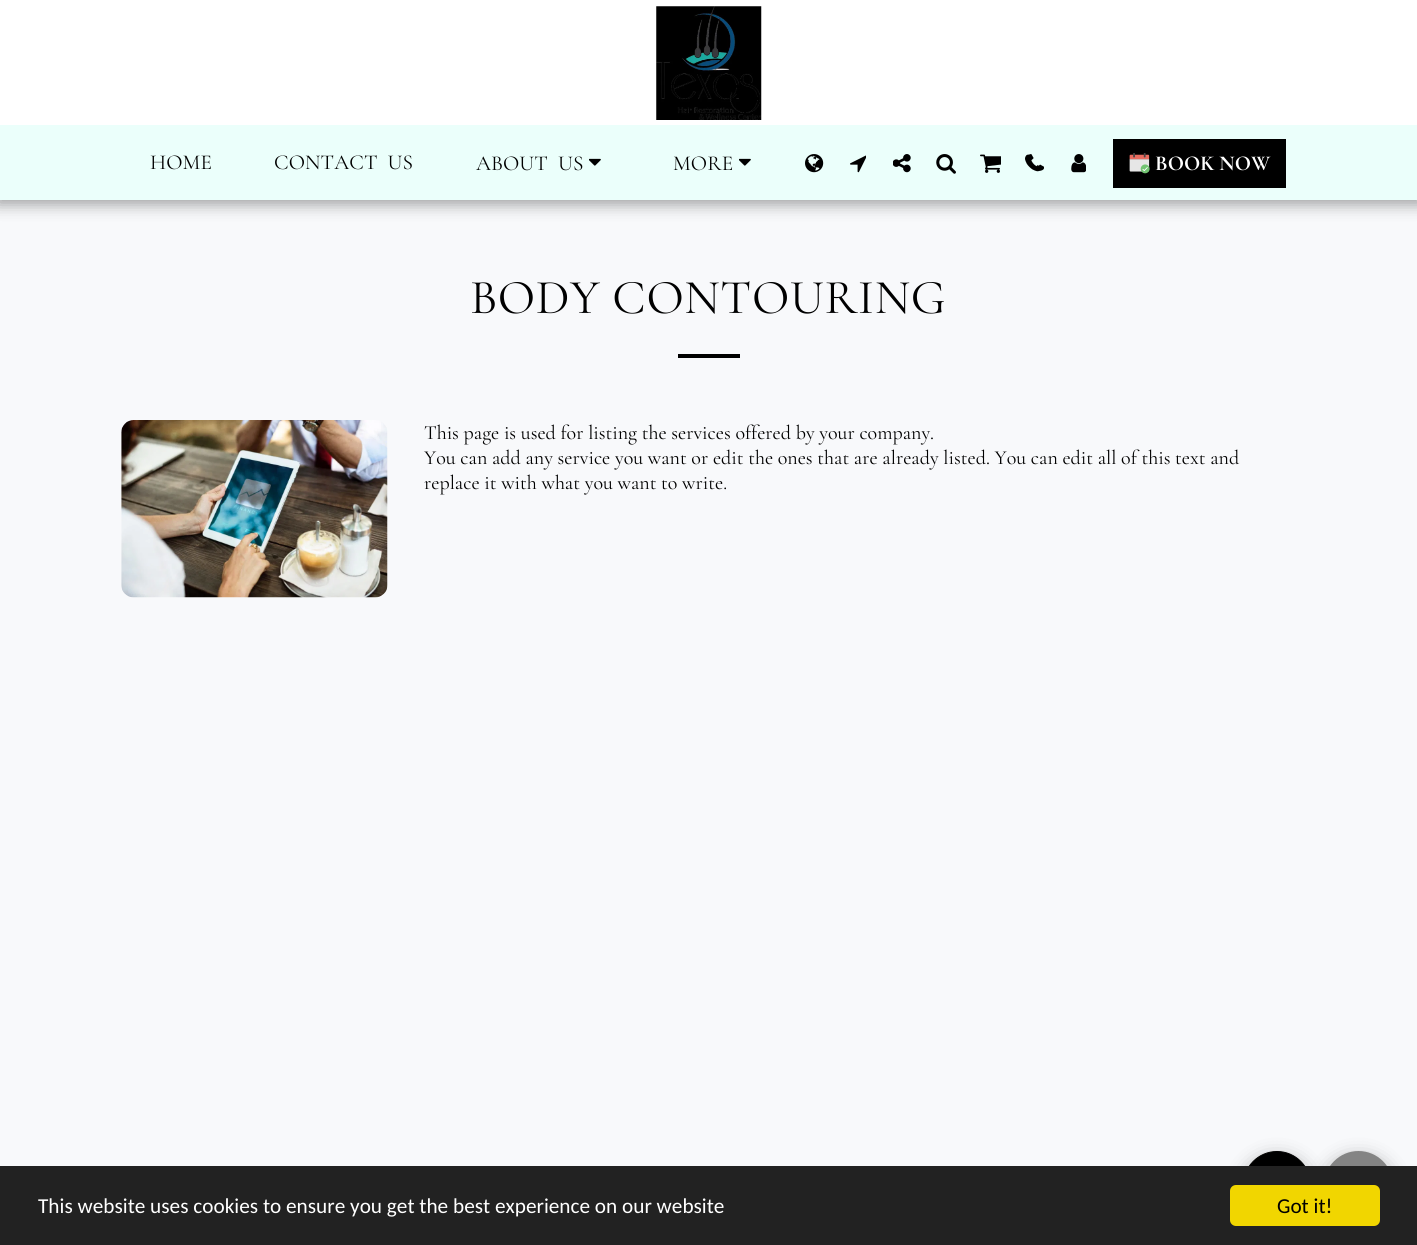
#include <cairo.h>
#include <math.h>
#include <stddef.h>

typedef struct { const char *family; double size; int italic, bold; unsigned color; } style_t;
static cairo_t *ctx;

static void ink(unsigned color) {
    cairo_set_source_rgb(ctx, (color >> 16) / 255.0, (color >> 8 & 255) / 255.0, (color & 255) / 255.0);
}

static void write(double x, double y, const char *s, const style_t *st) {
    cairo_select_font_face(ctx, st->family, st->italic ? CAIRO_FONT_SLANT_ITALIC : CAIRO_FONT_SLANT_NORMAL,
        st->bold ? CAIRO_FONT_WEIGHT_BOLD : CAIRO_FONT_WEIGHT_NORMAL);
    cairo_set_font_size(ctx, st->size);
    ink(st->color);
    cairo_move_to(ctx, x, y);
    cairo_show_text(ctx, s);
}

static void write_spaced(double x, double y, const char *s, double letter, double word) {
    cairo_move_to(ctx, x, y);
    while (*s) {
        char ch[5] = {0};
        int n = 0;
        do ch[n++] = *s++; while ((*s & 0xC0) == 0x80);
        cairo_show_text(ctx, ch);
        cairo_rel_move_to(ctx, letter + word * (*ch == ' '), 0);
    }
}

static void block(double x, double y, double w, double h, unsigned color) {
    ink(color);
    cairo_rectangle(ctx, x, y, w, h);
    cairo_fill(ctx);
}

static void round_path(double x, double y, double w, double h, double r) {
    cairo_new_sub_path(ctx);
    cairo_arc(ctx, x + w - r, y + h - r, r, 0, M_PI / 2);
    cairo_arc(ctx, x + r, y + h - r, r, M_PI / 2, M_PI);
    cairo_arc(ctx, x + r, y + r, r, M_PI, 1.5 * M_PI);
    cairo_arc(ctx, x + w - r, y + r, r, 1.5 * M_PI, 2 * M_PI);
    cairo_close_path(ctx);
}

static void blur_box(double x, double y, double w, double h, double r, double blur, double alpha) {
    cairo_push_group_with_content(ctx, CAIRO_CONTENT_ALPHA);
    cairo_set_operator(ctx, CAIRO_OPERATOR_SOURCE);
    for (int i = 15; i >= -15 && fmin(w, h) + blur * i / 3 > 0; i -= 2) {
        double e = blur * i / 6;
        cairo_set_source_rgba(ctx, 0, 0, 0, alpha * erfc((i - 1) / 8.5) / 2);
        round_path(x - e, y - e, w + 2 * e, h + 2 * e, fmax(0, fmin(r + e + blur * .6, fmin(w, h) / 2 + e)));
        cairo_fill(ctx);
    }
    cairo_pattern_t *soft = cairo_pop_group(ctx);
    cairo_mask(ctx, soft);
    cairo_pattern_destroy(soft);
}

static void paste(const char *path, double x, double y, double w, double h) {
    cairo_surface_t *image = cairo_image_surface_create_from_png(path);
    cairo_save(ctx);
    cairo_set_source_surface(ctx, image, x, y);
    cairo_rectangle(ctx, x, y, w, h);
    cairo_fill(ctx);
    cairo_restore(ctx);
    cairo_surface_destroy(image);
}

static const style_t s1 = {"Cormorant Garamond", 21.25, 0, 1, 0xffffff};
static const style_t s2 = {"Cormorant Garamond", 20, 0, 0, 0x000000};
static const style_t s3 = {"Carlito", 21.25, 0, 0, 0xffffff};
static const style_t s4 = {"Carlito", 21.25, 0, 0, 0x000000};

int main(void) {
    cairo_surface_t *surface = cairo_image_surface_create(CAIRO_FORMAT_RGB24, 1417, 1245);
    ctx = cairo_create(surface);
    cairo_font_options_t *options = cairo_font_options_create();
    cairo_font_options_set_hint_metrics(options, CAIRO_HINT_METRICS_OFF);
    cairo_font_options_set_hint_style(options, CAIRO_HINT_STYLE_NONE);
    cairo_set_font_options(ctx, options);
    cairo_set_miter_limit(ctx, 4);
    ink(0xf8f9fb);
    cairo_paint(ctx);
    ink(0x000000);
    blur_box(-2, 0, 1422, 205, 0, 7.5, 0.35);
    block(0, 125, 1417, 75, 0xebfffb);
    block(0, 0, 1417, 125, 0xffffff);
    paste("pic1.png", 656, 6, 106, 114);
    cairo_select_font_face(ctx, "Cormorant Garamond", CAIRO_FONT_SLANT_NORMAL, CAIRO_FONT_WEIGHT_NORMAL);
    cairo_set_font_size(ctx, 21.25);
    ink(0x000000);
    write_spaced(150, 169, "HOME", 0.1, 0);
    write_spaced(274, 169, "CONTACT US", 0.1, 5);
    write_spaced(476, 170, "ABOUT US", 0.1, 5);
    paste("pic2.png", 589, 158, 12, 8);
    write_spaced(673, 170, "MORE", 0.1, 0);
    paste("pic2.png", 739, 158, 12, 8);
    paste("pic3.png", 805, 154, 19, 19);
    paste("pic4.png", 850, 155, 16, 18);
    paste("pic5.png", 893, 154, 18, 19);
    paste("pic6.png", 936, 154, 20, 20);
    paste("pic7.png", 980, 154, 21, 19);
    paste("pic8.png", 1028, 154, 16, 17);
    paste("pic9.png", 1025, 154, 16, 18);
    paste("pic10.png", 1071, 154, 15, 19);
    block(1113, 139, 173, 49, 0x000000);
    paste("pic11.png", 1129, 153, 21, 21);
    write(1155, 170, "BOOK NOW", &s1);
    cairo_select_font_face(ctx, "Cormorant Garamond", CAIRO_FONT_SLANT_NORMAL, CAIRO_FONT_WEIGHT_NORMAL);
    cairo_set_font_size(ctx, 48.75);
    ink(0x000000);
    write_spaced(470, 313, "BODY CONTOURING", 0.6, 0);
    block(678, 354, 62, 4, 0x000000);
    paste("pic12.png", 121, 420, 267, 178);
    write(424, 439, "This page is used for listing the services offered by your company.", &s2);
    write(424, 464, "You can add any service you want or edit the ones that are already listed. You can edit all of this text and", &s2);
    write(424, 489, "replace it with what you want to write.", &s2);
    ink(0x000000);
    blur_box(1324, 1158, 69, 68, 34, 9.5, 0.35);
    ink(0x848484);
    cairo_arc(ctx, 1358.5, 1185.5, 34.5, 0, 2 * M_PI);
    cairo_fill(ctx);
    ink(0x000000);
    blur_box(1243, 1158, 68, 68, 34, 9.5, 0.35);
    ink(0x000000);
    round_path(1243.5, 1151.5, 67, 68, 33.5);
    cairo_fill_preserve(ctx);
    cairo_set_line_width(ctx, 1);
    cairo_stroke(ctx);
    block(0, 1166, 1417, 79, 0x222222);
    write(38, 1213, "This website uses cookies to ensure you get the best experience on our website", &s3);
    ink(0xf1d600);
    round_path(1230, 1185, 150, 41, 6);
    cairo_fill(ctx);
    write(1277, 1213, "Got it!", &s4);
    cairo_surface_write_to_png(surface, "screenshot.png");
    cairo_font_options_destroy(options);
    cairo_destroy(ctx);
    cairo_surface_destroy(surface);
    return 0;
}
